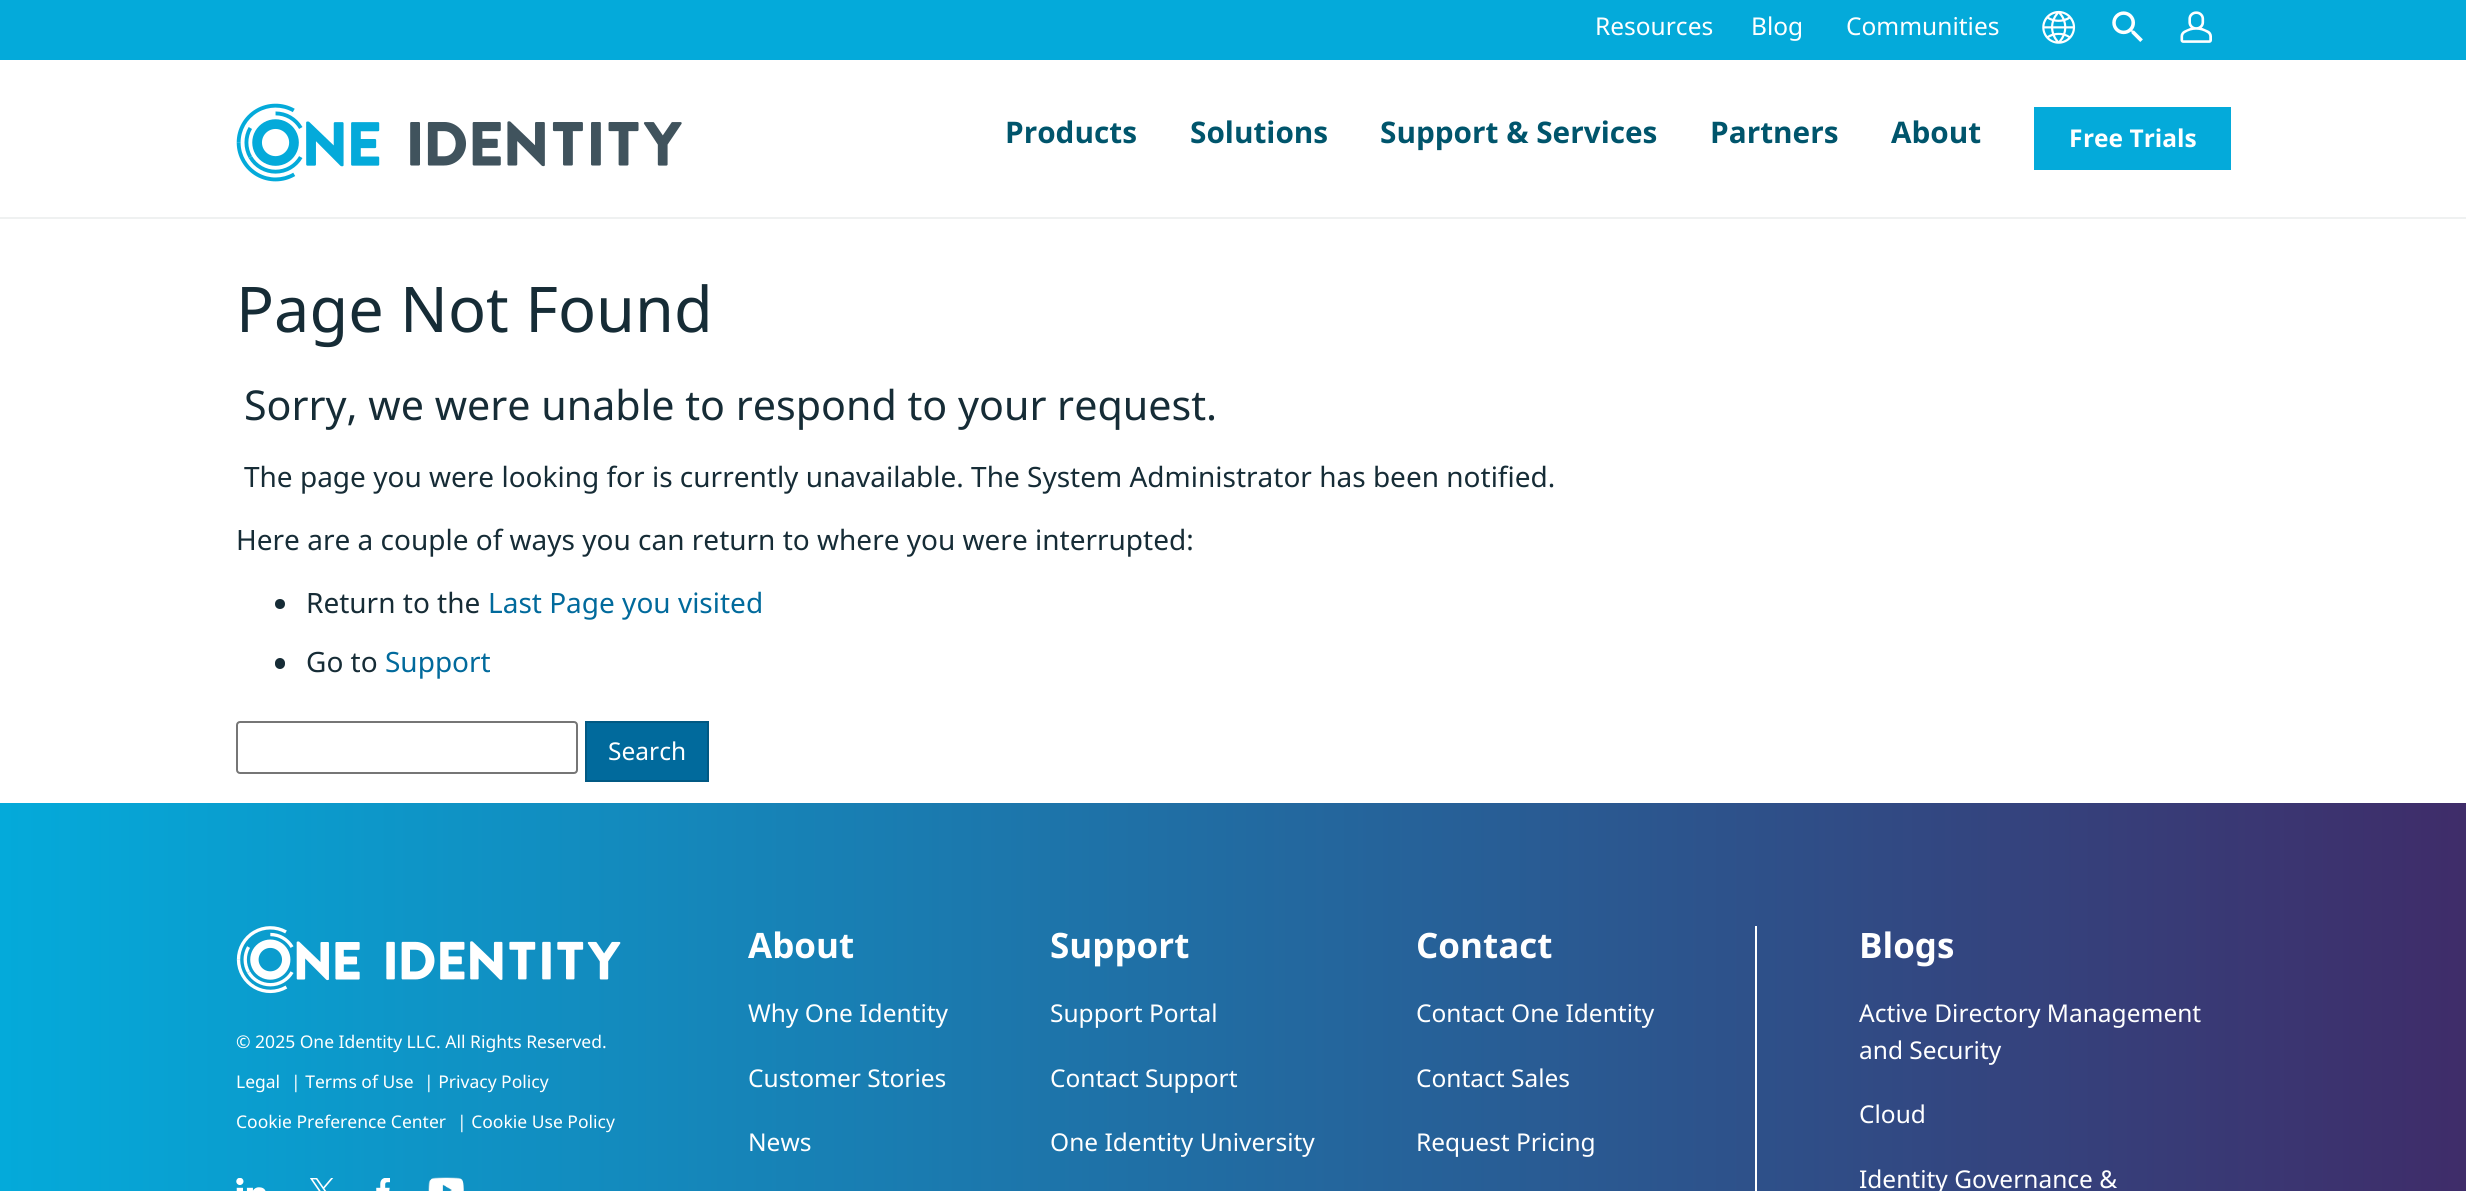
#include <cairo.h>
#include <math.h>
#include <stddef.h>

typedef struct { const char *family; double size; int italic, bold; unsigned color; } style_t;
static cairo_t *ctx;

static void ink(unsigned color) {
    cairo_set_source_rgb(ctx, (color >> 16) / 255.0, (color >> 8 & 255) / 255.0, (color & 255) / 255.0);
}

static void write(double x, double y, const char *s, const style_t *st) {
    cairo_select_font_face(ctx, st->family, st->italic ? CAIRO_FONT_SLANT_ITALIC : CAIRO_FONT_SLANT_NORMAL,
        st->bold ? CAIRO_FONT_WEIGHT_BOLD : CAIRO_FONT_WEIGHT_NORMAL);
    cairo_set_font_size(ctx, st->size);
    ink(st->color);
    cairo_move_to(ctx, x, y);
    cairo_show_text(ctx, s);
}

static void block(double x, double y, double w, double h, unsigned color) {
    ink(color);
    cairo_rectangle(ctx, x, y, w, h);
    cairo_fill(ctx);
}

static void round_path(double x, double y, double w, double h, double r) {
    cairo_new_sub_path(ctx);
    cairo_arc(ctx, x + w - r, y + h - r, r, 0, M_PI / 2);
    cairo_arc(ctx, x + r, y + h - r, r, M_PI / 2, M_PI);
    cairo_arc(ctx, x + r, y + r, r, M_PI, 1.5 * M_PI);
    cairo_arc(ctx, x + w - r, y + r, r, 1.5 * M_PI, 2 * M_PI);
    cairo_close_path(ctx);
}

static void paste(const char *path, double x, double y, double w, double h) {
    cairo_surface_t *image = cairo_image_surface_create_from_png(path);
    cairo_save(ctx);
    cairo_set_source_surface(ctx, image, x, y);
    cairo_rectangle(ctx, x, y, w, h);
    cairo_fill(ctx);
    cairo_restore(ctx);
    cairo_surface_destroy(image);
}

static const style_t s1 = {"Noto Sans", 24.5, 0, 0, 0xffffff};
static const style_t s2 = {"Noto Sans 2", 29.75, 0, 1, 0x00556c};
static const style_t s3 = {"Noto Sans", 24.5, 0, 1, 0xffffff};
static const style_t s4 = {"Noto Sans 2", 24.5, 0, 1, 0xffffff};
static const style_t s5 = {"Noto Sans", 63, 0, 0, 0x162c36};
static const style_t s6 = {"Noto Sans", 41.2, 0, 0, 0x162c36};
static const style_t s7 = {"Noto Sans", 28, 0, 0, 0x162c36};
static const style_t s8 = {"Noto Sans", 28, 0, 0, 0x016a9c};
static const style_t s9 = {"Noto Sans", 17.5, 0, 0, 0xffffff};
static const style_t s10 = {"Noto Sans 2", 35, 0, 1, 0xffffff};

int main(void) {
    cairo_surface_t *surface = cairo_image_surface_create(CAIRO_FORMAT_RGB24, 2466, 1191);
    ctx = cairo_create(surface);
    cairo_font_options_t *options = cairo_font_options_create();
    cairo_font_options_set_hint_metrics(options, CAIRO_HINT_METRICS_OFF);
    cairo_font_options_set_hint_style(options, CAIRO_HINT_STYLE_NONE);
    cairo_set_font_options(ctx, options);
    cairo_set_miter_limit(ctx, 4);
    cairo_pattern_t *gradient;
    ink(0xffffff);
    cairo_paint(ctx);
    block(0, 0, 2466, 60, 0x04aada);
    write(1595, 35, "Resources", &s1);
    write(1751, 35, "Blog", &s1);
    write(1846, 35, "Communities", &s1);
    paste("pic1.png", 2042, 10, 34, 34);
    paste("pic2.png", 2112, 11, 31, 31);
    paste("pic3.png", 2180, 11, 32, 32);
    block(0, 217, 2466, 2, 0xeff1f1);
    paste("pic4.png", 236, 103, 446, 79);
    write(1005, 143, "Products", &s2);
    write(1190, 143, "Solutions", &s2);
    write(1380, 143, "Support & Services", &s2);
    write(1710, 143, "Partners", &s2);
    write(1891, 143, "About", &s2);
    block(2034, 107, 197, 63, 0x04aada);
    write(2069, 147, "F", &s3);
    write(2083, 147, "ree Trials", &s4);
    write(236, 332, "Page Not Found", &s5);
    write(244, 420, "Sorry, we were unable to respond to your request.", &s6);
    write(244, 487, "The page you were looking for is currently unavailable. The System Administrator has been notified.", &s7);
    write(236, 550, "Here are a couple of ways you can return to where you were interrupted:", &s7);
    cairo_new_path(ctx);
    cairo_arc(ctx, 280, 604, 5, 0, 2 * M_PI);
    cairo_fill(ctx);
    write(306, 613, "Return to the", &s7);
    write(488, 613, "Last Page you visited", &s8);
    ink(0x162c36);
    round_path(275, 658, 10, 11, 5);
    cairo_fill(ctx);
    write(306, 672, "Go to", &s7);
    write(385, 672, "Support", &s8);
    round_path(237, 722, 340, 51, 3);
    ink(0x767676);
    cairo_stroke(ctx);
    ink(0x016a9c);
    cairo_rectangle(ctx, 586, 722, 122, 59);
    cairo_fill_preserve(ctx);
    ink(0x015983);
    cairo_stroke(ctx);
    write(608, 760, "Search", &s1);
    gradient = cairo_pattern_create_linear(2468, 1143, 0, 1143);
    cairo_pattern_add_color_stop_rgba(gradient, 0, 0.247, 0.173, 0.412, 1);
    cairo_pattern_add_color_stop_rgba(gradient, 1, 0.016, 0.667, 0.855, 1);
    cairo_set_source(ctx, gradient);
    cairo_pattern_destroy(gradient);
    cairo_rectangle(ctx, 0, 803, 2466, 388);
    cairo_fill(ctx);
    paste("pic5.png", 236, 926, 385, 68);
    write(236, 1048, "© 2025 One Identity LLC. All Rights Reserved.", &s9);
    write(236, 1088, "Legal", &s9);
    write(291, 1088, "| Terms of Use", &s9);
    write(424, 1088, "| Privacy Policy", &s9);
    write(236, 1128, "Cookie Preference Center", &s9);
    write(457, 1128, "| Cookie Use Policy", &s9);
    paste("pic6.png", 236, 1178, 30, 13);
    paste("pic7.png", 310, 1178, 24, 13);
    paste("pic8.png", 376, 1178, 14, 13);
    paste("pic9.png", 428, 1177, 36, 14);
    write(748, 958, "About", &s10);
    write(748, 1022, "Why One Identity", &s1);
    write(748, 1087, "Customer Stories", &s1);
    write(748, 1151, "News", &s1);
    write(1050, 958, "Support", &s10);
    write(1050, 1022, "Support Portal", &s1);
    write(1050, 1087, "Contact Support", &s1);
    write(1050, 1151, "One Identity University", &s1);
    block(1755, 926, 2, 265, 0xffffff);
    write(1416, 958, "Contact", &s10);
    write(1416, 1022, "Contact One Identity", &s1);
    write(1416, 1087, "Contact Sales", &s1);
    write(1416, 1151, "Request Pricing", &s1);
    write(1859, 958, "Blogs", &s10);
    write(1859, 1022, "Active Directory Management", &s1);
    write(1859, 1059, "and Security", &s1);
    write(1859, 1123, "Cloud", &s1);
    write(1859, 1188, "Identity Governance &", &s1);
    cairo_surface_write_to_png(surface, "screenshot.png");
    cairo_font_options_destroy(options);
    cairo_destroy(ctx);
    cairo_surface_destroy(surface);
    return 0;
}
